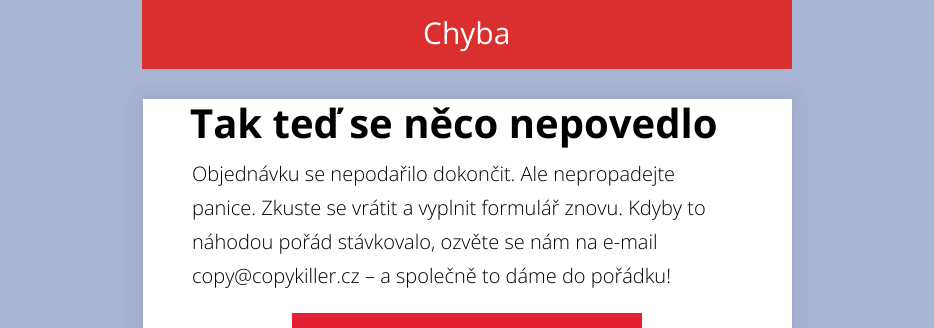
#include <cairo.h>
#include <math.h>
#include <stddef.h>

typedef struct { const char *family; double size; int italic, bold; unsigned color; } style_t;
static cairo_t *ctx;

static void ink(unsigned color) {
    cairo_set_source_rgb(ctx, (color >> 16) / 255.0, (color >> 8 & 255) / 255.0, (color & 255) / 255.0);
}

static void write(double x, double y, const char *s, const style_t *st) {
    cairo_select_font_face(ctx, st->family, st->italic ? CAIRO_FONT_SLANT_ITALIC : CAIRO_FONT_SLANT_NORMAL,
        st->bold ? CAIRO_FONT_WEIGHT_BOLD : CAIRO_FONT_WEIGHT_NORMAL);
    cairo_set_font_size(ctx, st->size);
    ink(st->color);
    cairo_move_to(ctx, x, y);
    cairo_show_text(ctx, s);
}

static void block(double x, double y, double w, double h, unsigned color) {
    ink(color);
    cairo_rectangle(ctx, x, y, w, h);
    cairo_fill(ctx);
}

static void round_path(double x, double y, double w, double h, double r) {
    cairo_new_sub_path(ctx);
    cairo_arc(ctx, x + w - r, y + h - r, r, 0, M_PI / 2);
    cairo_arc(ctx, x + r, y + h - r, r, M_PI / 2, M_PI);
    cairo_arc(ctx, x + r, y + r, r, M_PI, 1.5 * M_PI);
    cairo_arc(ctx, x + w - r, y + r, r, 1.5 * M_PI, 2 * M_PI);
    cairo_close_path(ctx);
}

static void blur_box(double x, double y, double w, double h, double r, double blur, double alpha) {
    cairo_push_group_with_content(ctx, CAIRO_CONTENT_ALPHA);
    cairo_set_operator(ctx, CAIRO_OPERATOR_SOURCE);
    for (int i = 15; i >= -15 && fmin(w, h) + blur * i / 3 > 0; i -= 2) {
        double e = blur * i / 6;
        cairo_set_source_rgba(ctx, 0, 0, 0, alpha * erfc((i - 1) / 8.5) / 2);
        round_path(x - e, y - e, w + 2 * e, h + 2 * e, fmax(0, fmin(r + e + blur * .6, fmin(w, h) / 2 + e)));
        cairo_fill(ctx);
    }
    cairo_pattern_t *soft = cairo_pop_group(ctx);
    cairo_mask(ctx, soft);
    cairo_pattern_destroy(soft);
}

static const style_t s1 = {"Open Sans", 30, 0, 0, 0xffffff};
static const style_t s2 = {"Open Sans", 40, 0, 1, 0x000000};
static const style_t s3 = {"Open Sans Light", 20, 0, 0, 0x000000};

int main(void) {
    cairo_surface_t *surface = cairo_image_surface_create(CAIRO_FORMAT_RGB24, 934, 328);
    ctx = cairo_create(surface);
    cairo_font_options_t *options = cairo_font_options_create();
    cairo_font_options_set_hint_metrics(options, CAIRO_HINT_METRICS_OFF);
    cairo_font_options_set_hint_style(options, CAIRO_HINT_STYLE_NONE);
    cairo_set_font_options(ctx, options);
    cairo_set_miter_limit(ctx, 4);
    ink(0xa9b5d5);
    cairo_paint(ctx);
    block(142, 0, 650, 69, 0xdb2e2e);
    write(423, 44, "Chyba", &s1);
    ink(0x000000);
    blur_box(143, 99, 649, 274, 0, 15, 0.1);
    block(143, 99, 649, 229, 0xffffff);
    write(190, 138, "Tak teď se něco nepovedlo", &s2);
    write(192, 181, "Objednávku se nepodařilo dokončit. Ale nepropadejte", &s3);
    write(192, 215, "panice. Zkuste se vrátit a vyplnit formulář znovu. Kdyby to", &s3);
    write(192, 249, "náhodou pořád stávkovalo, ozvěte se nám na e-mail", &s3);
    write(192, 283, "copy@copykiller.cz – a společně to dáme do pořádku!", &s3);
    block(292, 313, 350, 15, 0xe21f33);
    cairo_surface_write_to_png(surface, "screenshot.png");
    cairo_font_options_destroy(options);
    cairo_destroy(ctx);
    cairo_surface_destroy(surface);
    return 0;
}
